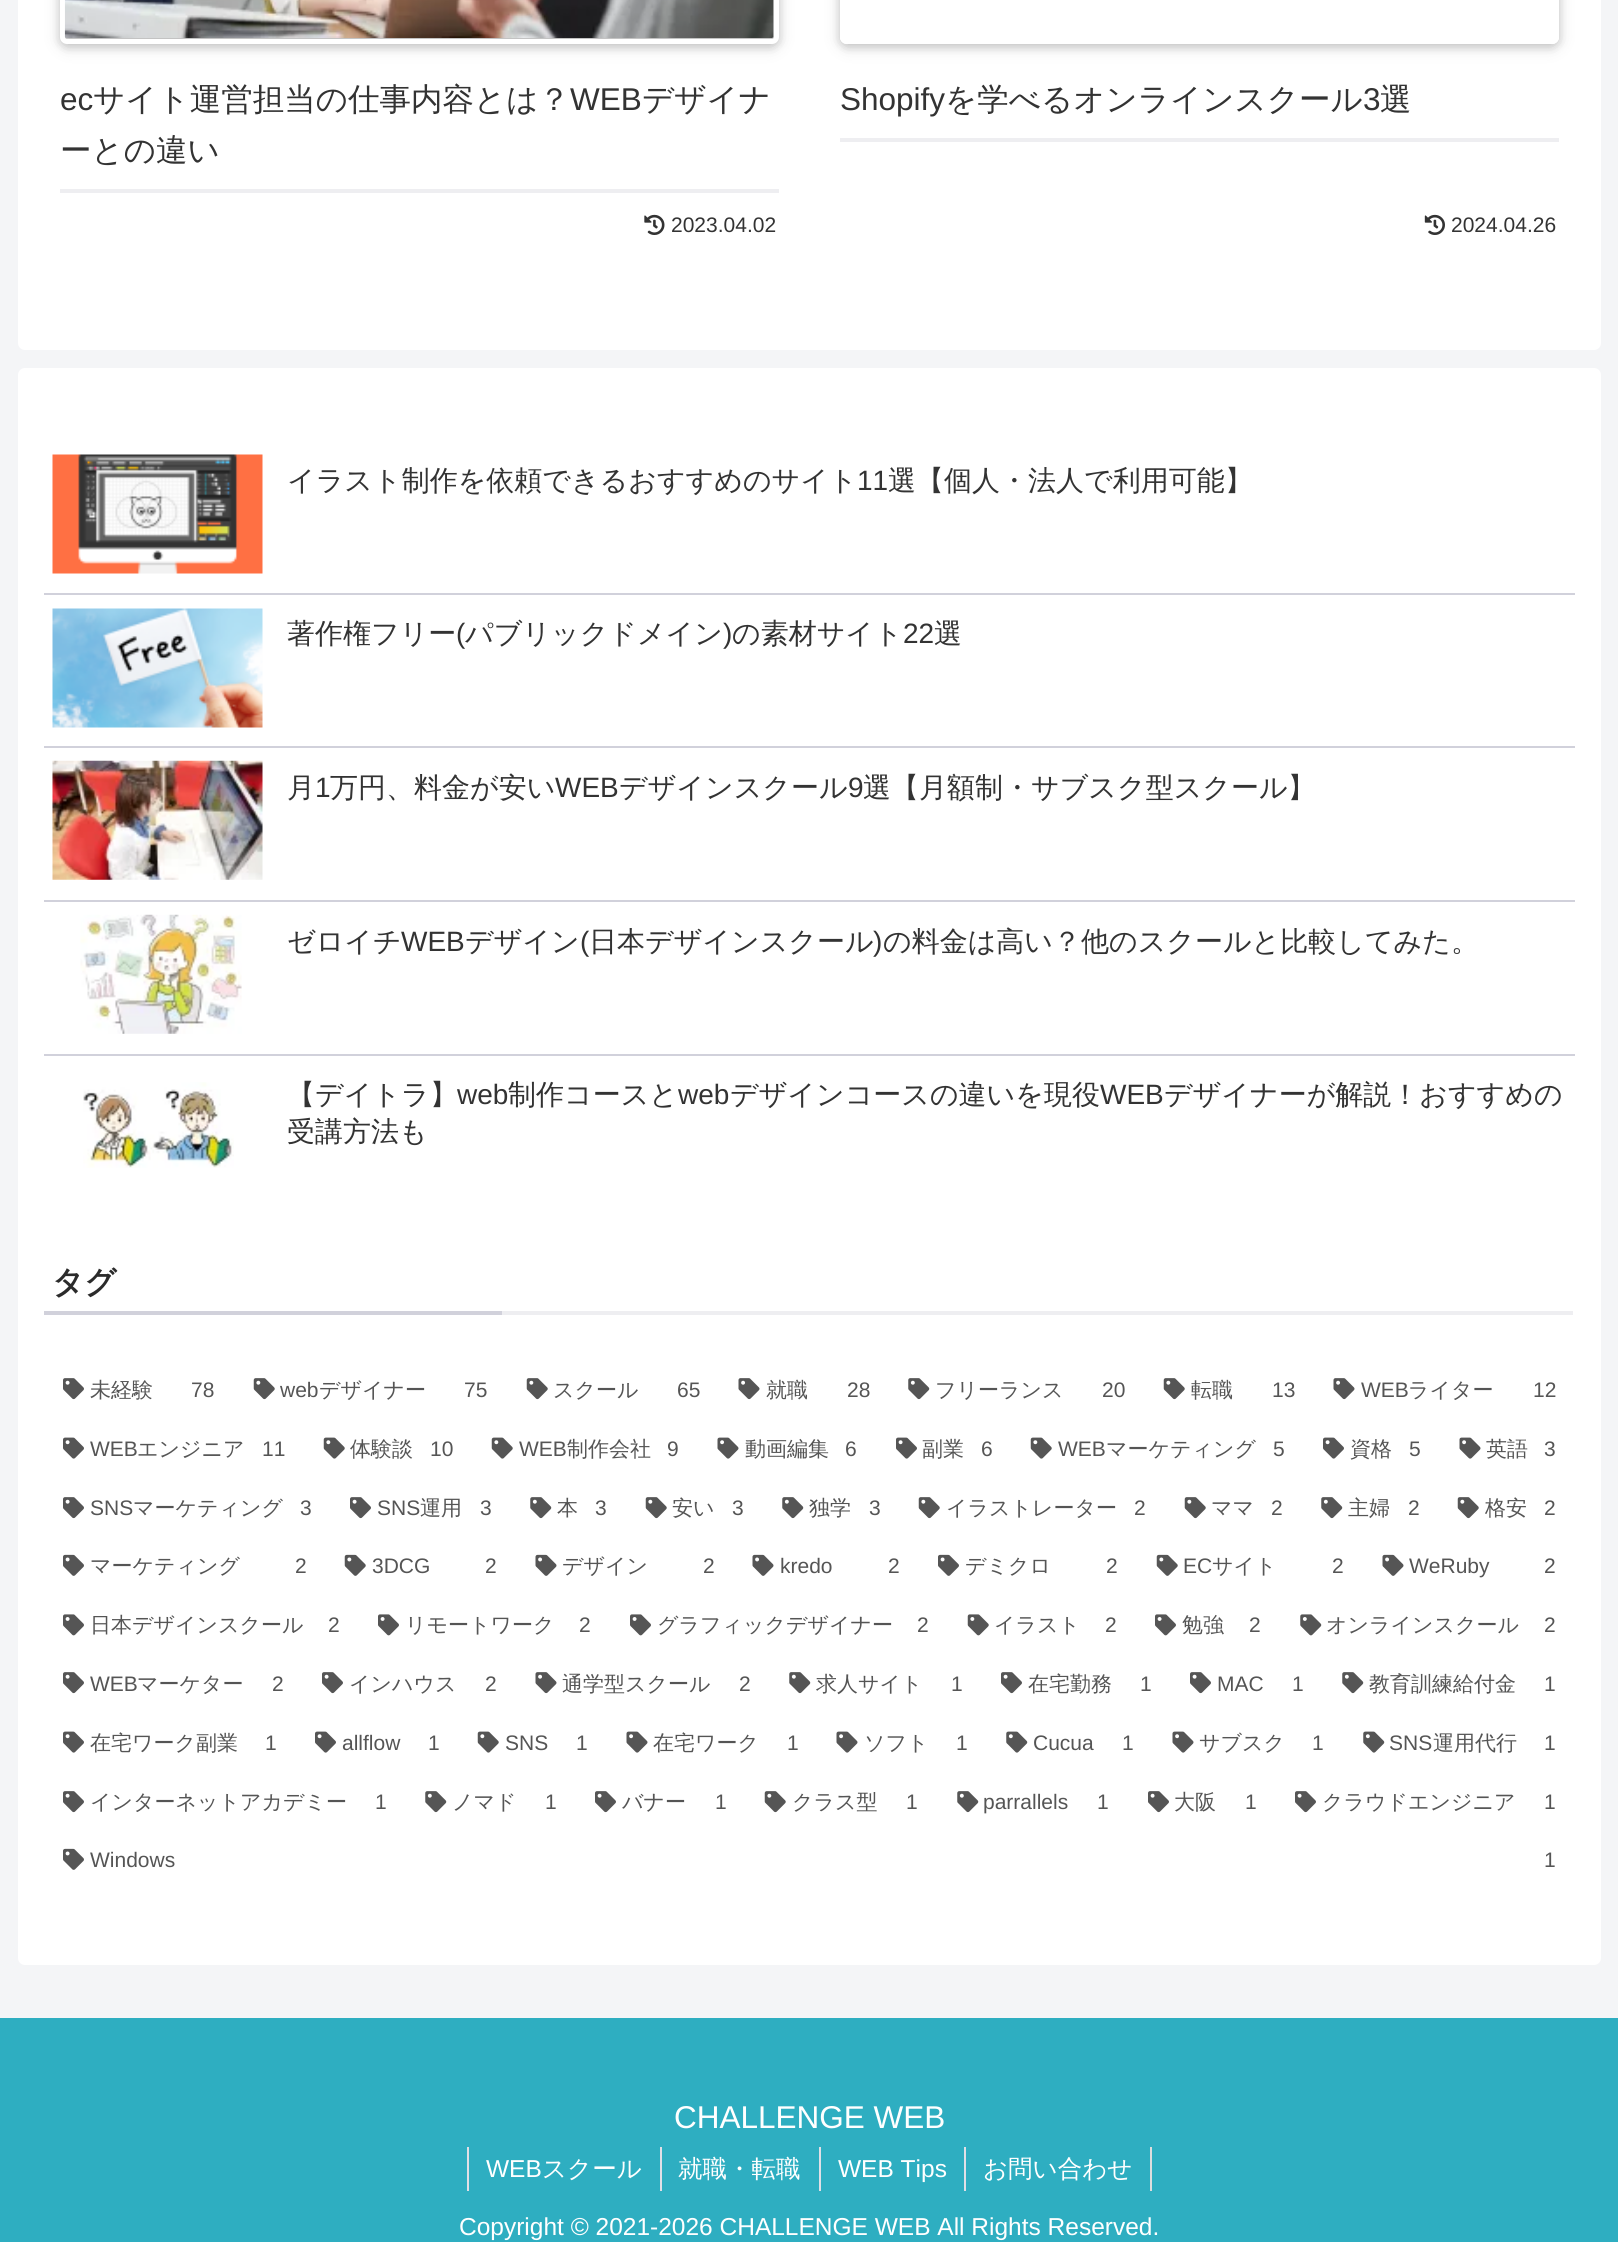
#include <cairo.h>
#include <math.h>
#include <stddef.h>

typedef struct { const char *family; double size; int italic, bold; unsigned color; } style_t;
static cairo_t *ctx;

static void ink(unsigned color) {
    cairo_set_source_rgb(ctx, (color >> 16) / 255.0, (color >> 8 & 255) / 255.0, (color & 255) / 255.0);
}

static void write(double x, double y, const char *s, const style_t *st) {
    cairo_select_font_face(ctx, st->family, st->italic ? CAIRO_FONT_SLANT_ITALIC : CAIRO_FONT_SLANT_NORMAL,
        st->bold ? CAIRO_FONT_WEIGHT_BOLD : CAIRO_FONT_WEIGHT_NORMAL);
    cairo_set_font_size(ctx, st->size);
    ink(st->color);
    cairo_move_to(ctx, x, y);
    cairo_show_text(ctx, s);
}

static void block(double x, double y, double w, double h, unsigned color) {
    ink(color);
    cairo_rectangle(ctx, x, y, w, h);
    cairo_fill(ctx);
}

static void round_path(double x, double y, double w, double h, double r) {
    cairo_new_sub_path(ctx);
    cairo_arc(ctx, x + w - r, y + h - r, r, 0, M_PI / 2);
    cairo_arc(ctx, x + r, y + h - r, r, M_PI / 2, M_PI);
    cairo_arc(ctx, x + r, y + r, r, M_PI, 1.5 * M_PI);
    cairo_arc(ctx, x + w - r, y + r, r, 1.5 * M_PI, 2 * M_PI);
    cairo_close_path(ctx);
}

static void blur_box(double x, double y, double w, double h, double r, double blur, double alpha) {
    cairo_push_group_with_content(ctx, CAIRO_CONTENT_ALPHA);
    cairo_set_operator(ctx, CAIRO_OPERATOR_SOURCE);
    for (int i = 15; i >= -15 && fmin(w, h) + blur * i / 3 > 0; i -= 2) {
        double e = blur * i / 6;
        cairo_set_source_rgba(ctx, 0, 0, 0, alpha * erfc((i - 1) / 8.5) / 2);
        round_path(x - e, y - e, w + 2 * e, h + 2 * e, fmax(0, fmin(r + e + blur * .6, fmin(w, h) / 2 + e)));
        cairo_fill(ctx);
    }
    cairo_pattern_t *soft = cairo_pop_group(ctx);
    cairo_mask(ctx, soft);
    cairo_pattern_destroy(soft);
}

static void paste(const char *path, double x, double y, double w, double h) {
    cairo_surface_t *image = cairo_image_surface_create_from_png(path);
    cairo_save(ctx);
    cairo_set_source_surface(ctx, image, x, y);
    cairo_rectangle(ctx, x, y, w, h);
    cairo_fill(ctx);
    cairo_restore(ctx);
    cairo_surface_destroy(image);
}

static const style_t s1 = {"Liberation Sans", 31.5, 0, 0, 0x333333};
static const style_t s2 = {"WenQuanYi Zen Hei Medium", 31.5, 0, 0, 0x333333};
static const style_t s3 = {"Liberation Sans", 21, 0, 0, 0x333333};
static const style_t s4 = {"WenQuanYi Zen Hei Medium", 28, 0, 0, 0x333333};
static const style_t s5 = {"Liberation Sans", 28, 0, 0, 0x333333};
static const style_t s6 = {"WenQuanYi Zen Hei", 31.5, 0, 1, 0x2b2b2b};
static const style_t s7 = {"WenQuanYi Zen Hei Medium", 21, 0, 0, 0x555555};
static const style_t s8 = {"Liberation Sans", 21, 0, 0, 0x555555};
static const style_t s9 = {"Liberation Sans", 31.5, 0, 0, 0xffffff};
static const style_t s10 = {"Liberation Sans", 24.5, 0, 0, 0xffffff};
static const style_t s11 = {"WenQuanYi Zen Hei Medium", 24.5, 0, 0, 0xffffff};

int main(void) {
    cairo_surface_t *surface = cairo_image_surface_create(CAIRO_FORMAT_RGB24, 1618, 2242);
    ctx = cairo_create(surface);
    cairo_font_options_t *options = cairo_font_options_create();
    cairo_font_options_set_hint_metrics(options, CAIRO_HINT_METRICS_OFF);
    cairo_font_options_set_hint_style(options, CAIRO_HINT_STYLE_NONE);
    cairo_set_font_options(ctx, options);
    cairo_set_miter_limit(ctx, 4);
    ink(0xf4f5f7);
    cairo_paint(ctx);
    ink(0xffffff);
    round_path(18, -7, 1583, 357, 7);
    cairo_fill(ctx);
    ink(0x000000);
    blur_box(60, -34, 719, 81, 7, 9, 0.12);
    blur_box(60, -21, 719, 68, 7, 4.5, 0.16);
    round_path(62.5, -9.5, 714, 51, 4.5);
    ink(0xffffff);
    cairo_set_line_width(ctx, 5);
    cairo_stroke(ctx);
    paste("pic1.png", 64, 0, 710, 38);
    block(60, 189, 719, 4, 0xeeeef1);
    write(60, 110, "ec", &s1);
    write(93, 110, "サイト運営担当の仕事内容とは？", &s2);
    write(570, 110, "WEB", &s1);
    write(642, 110, "デザイナ", &s2);
    write(60, 161, "ーとの違い", &s2);
    paste("pic2.png", 644, 214, 21, 21);
    write(671, 232, "2023.04.02", &s3);
    cairo_save(ctx);
    cairo_set_fill_rule(ctx, CAIRO_FILL_RULE_EVEN_ODD);
    cairo_new_path(ctx);
    cairo_move_to(ctx, 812, 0);
    cairo_line_to(ctx, 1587, 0);
    cairo_line_to(ctx, 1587, 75);
    cairo_line_to(ctx, 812, 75);
    cairo_close_path(ctx);
    cairo_move_to(ctx, 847, -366);
    cairo_line_to(ctx, 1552, -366);
    cairo_curve_to(ctx, 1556, -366, 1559, -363, 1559, -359);
    cairo_line_to(ctx, 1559, 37);
    cairo_curve_to(ctx, 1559, 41, 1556, 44, 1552, 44);
    cairo_line_to(ctx, 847, 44);
    cairo_curve_to(ctx, 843, 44, 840, 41, 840, 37);
    cairo_line_to(ctx, 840, -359);
    cairo_curve_to(ctx, 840, -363, 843, -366, 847, -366);
    cairo_close_path(ctx);
    cairo_clip(ctx);
    ink(0x000000);
    blur_box(840, -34, 719, 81, 7, 9, 0.12);
    cairo_restore(ctx);
    cairo_save(ctx);
    cairo_set_fill_rule(ctx, CAIRO_FILL_RULE_EVEN_ODD);
    cairo_new_path(ctx);
    cairo_move_to(ctx, 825, 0);
    cairo_line_to(ctx, 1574, 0);
    cairo_line_to(ctx, 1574, 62);
    cairo_line_to(ctx, 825, 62);
    cairo_close_path(ctx);
    cairo_move_to(ctx, 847, -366);
    cairo_line_to(ctx, 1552, -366);
    cairo_curve_to(ctx, 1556, -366, 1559, -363, 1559, -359);
    cairo_line_to(ctx, 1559, 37);
    cairo_curve_to(ctx, 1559, 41, 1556, 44, 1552, 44);
    cairo_line_to(ctx, 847, 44);
    cairo_curve_to(ctx, 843, 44, 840, 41, 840, 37);
    cairo_line_to(ctx, 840, -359);
    cairo_curve_to(ctx, 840, -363, 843, -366, 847, -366);
    cairo_close_path(ctx);
    cairo_clip(ctx);
    ink(0x000000);
    blur_box(840, -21, 719, 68, 7, 4.5, 0.16);
    cairo_restore(ctx);
    round_path(842.5, -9.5, 714, 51, 4.5);
    ink(0xffffff);
    cairo_stroke(ctx);
    block(840, 138, 719, 4, 0xeeeef1);
    write(840, 110, "Shopify", &s1);
    write(945, 110, "を学べるオンラインスクール", &s2);
    write(1363, 110, "3", &s1);
    write(1380, 110, "選", &s2);
    paste("pic3.png", 1424, 214, 21, 21);
    write(1451, 232, "2024.04.26", &s3);
    ink(0xffffff);
    round_path(18, 368, 1583, 1597, 7);
    cairo_fill(ctx);
    block(44, 593, 1531, 2, 0xd1d1db);
    paste("pic4.png", 52, 454, 211, 120);
    write(287, 490, "イラスト制作を依頼できるおすすめのサイト", &s4);
    write(857, 490, "11", &s5);
    write(888, 490, "選【個人・法人で利用可能】", &s4);
    block(44, 746, 1531, 2, 0xd1d1db);
    paste("pic5.png", 52, 608, 211, 120);
    write(287, 643, "著作権フリー", &s4);
    write(456, 643, "(", &s5);
    write(465, 643, "パブリックドメイン", &s4);
    write(723, 643, ")", &s5);
    write(732, 643, "の素材サイト", &s4);
    write(903, 643, "22", &s5);
    write(934, 643, "選", &s4);
    block(44, 900, 1531, 2, 0xd1d1db);
    paste("pic6.png", 52, 760, 211, 120);
    write(287, 797, "月", &s4);
    write(315, 797, "1", &s5);
    write(330, 797, "万円、料金が安い", &s4);
    write(555, 797, "WEB", &s5);
    write(619, 797, "デザインスクール", &s4);
    write(848, 797, "9", &s5);
    write(863, 797, "選【月額制・サブスク型スクール】", &s4);
    block(44, 1054, 1531, 2, 0xd1d1db);
    paste("pic7.png", 80, 914, 162, 120);
    write(287, 951, "ゼロイチ", &s4);
    write(401, 951, "WEB", &s5);
    write(465, 951, "デザイン", &s4);
    write(580, 951, "(", &s5);
    write(589, 951, "日本デザインスクール", &s4);
    write(873, 951, ")", &s5);
    write(883, 951, "の料金は高い？他のスクールと比較してみた。", &s4);
    paste("pic8.png", 83, 1082, 151, 86);
    write(287, 1104, "【デイトラ】", &s4);
    write(457, 1104, "web", &s5);
    write(508, 1104, "制作コースと", &s4);
    write(678, 1104, "web", &s5);
    write(730, 1104, "デザインコースの違いを現役", &s4);
    write(1100, 1104, "WEB", &s5);
    write(1164, 1104, "デザイナーが解説！おすすめの", &s4);
    write(287, 1141, "受講方法も", &s4);
    block(502, 1311, 1071, 4, 0xeeeef1);
    write(52, 1293, "タグ", &s6);
    block(44, 1311, 458, 4, 0xd1d1db);
    paste("pic9.png", 63, 1378, 21, 22);
    write(90, 1397, "未経験", &s7);
    write(191, 1397, "78", &s8);
    paste("pic10.png", 253, 1378, 22, 22);
    write(280, 1397, "web", &s8);
    write(319, 1397, "デザイナー", &s7);
    write(464, 1397, "75", &s8);
    paste("pic10.png", 526, 1378, 22, 22);
    write(553, 1397, "スクール", &s7);
    write(677, 1397, "65", &s8);
    paste("pic11.png", 738, 1378, 22, 22);
    write(766, 1397, "就職", &s7);
    write(847, 1397, "28", &s8);
    paste("pic12.png", 908, 1378, 22, 22);
    write(935, 1397, "フリーランス", &s7);
    write(1102, 1397, "20", &s8);
    paste("pic10.png", 1163, 1378, 22, 22);
    write(1191, 1397, "転職", &s7);
    write(1272, 1397, "13", &s8);
    paste("pic11.png", 1333, 1378, 22, 22);
    write(1361, 1397, "WEB", &s8);
    write(1408, 1397, "ライター", &s7);
    write(1533, 1397, "12", &s8);
    paste("pic13.png", 63, 1437, 21, 22);
    write(90, 1456, "WEB", &s8);
    write(137, 1456, "エンジニア", &s7);
    write(262, 1456, "11", &s8);
    paste("pic14.png", 323, 1437, 22, 22);
    write(350, 1456, "体験談", &s7);
    write(430, 1456, "10", &s8);
    paste("pic14.png", 491, 1437, 22, 22);
    write(519, 1456, "WEB", &s8);
    write(567, 1456, "制作会社", &s7);
    write(667, 1456, "9", &s8);
    paste("pic15.png", 717, 1437, 22, 22);
    write(745, 1456, "動画編集", &s7);
    write(845, 1456, "6", &s8);
    paste("pic13.png", 896, 1437, 21, 22);
    write(922, 1456, "副業", &s7);
    write(981, 1456, "6", &s8);
    paste("pic14.png", 1030, 1437, 22, 22);
    write(1058, 1456, "WEB", &s8);
    write(1106, 1456, "マーケティング", &s7);
    write(1273, 1456, "5", &s8);
    paste("pic13.png", 1323, 1437, 21, 22);
    write(1350, 1456, "資格", &s7);
    write(1409, 1456, "5", &s8);
    paste("pic15.png", 1459, 1437, 22, 22);
    write(1486, 1456, "英語", &s7);
    write(1544, 1456, "3", &s8);
    paste("pic9.png", 63, 1497, 21, 22);
    write(90, 1515, "SNS", &s8);
    write(133, 1515, "マーケティング", &s7);
    write(300, 1515, "3", &s8);
    paste("pic9.png", 350, 1497, 21, 22);
    write(377, 1515, "SNS", &s8);
    write(420, 1515, "運用", &s7);
    write(480, 1515, "3", &s8);
    paste("pic12.png", 530, 1497, 22, 22);
    write(557, 1515, "本", &s7);
    write(595, 1515, "3", &s8);
    paste("pic10.png", 645, 1497, 22, 22);
    write(672, 1515, "安い", &s7);
    write(732, 1515, "3", &s8);
    paste("pic12.png", 782, 1497, 22, 22);
    write(809, 1515, "独学", &s7);
    write(869, 1515, "3", &s8);
    paste("pic10.png", 918, 1497, 22, 22);
    write(946, 1515, "イラストレーター", &s7);
    write(1134, 1515, "2", &s8);
    paste("pic10.png", 1184, 1497, 22, 22);
    write(1211, 1515, "ママ", &s7);
    write(1271, 1515, "2", &s8);
    paste("pic12.png", 1321, 1497, 22, 22);
    write(1348, 1515, "主婦", &s7);
    write(1408, 1515, "2", &s8);
    paste("pic10.png", 1457, 1497, 22, 22);
    write(1485, 1515, "格安", &s7);
    write(1544, 1515, "2", &s8);
    paste("pic16.png", 63, 1554, 21, 22);
    write(90, 1573, "マーケティング", &s7);
    write(295, 1573, "2", &s8);
    paste("pic17.png", 344, 1554, 22, 22);
    write(372, 1573, "3DCG", &s8);
    write(485, 1573, "2", &s8);
    paste("pic18.png", 535, 1554, 22, 22);
    write(562, 1573, "デザイン", &s7);
    write(703, 1573, "2", &s8);
    paste("pic18.png", 752, 1554, 22, 22);
    write(780, 1573, "kredo", &s8);
    write(888, 1573, "2", &s8);
    paste("pic16.png", 938, 1554, 21, 22);
    write(965, 1573, "デミクロ", &s7);
    write(1106, 1573, "2", &s8);
    paste("pic17.png", 1156, 1554, 22, 22);
    write(1183, 1573, "EC", &s8);
    write(1212, 1573, "サイト", &s7);
    write(1332, 1573, "2", &s8);
    paste("pic18.png", 1382, 1554, 22, 22);
    write(1409, 1573, "WeRuby", &s8);
    write(1544, 1573, "2", &s8);
    paste("pic19.png", 63, 1614, 21, 22);
    write(90, 1632, "日本デザインスクール", &s7);
    write(328, 1632, "2", &s8);
    paste("pic19.png", 378, 1614, 21, 22);
    write(405, 1632, "リモートワーク", &s7);
    write(579, 1632, "2", &s8);
    paste("pic19.png", 630, 1614, 21, 22);
    write(657, 1632, "グラフィックデザイナー", &s7);
    write(917, 1632, "2", &s8);
    paste("pic20.png", 967, 1614, 22, 22);
    write(994, 1632, "イラスト", &s7);
    write(1105, 1632, "2", &s8);
    paste("pic19.png", 1155, 1614, 21, 22);
    write(1182, 1632, "勉強", &s7);
    write(1249, 1632, "2", &s8);
    paste("pic21.png", 1300, 1614, 22, 22);
    write(1326, 1632, "オンラインスクール", &s7);
    write(1544, 1632, "2", &s8);
    paste("pic9.png", 63, 1672, 21, 22);
    write(90, 1691, "WEB", &s8);
    write(137, 1691, "マーケター", &s7);
    write(272, 1691, "2", &s8);
    paste("pic9.png", 322, 1672, 21, 22);
    write(349, 1691, "インハウス", &s7);
    write(485, 1691, "2", &s8);
    paste("pic11.png", 535, 1672, 22, 22);
    write(562, 1691, "通学型スクール", &s7);
    write(739, 1691, "2", &s8);
    paste("pic12.png", 789, 1672, 22, 22);
    write(816, 1691, "求人サイト", &s7);
    write(951, 1691, "1", &s8);
    paste("pic9.png", 1001, 1672, 21, 22);
    write(1028, 1691, "在宅勤務", &s7);
    write(1140, 1691, "1", &s8);
    paste("pic9.png", 1190, 1672, 21, 22);
    write(1217, 1691, "MAC", &s8);
    write(1292, 1691, "1", &s8);
    paste("pic12.png", 1342, 1672, 22, 22);
    write(1369, 1691, "教育訓練給付金", &s7);
    write(1544, 1691, "1", &s8);
    paste("pic13.png", 63, 1731, 21, 22);
    write(90, 1750, "在宅ワーク副業", &s7);
    write(265, 1750, "1", &s8);
    paste("pic13.png", 315, 1731, 21, 22);
    write(342, 1750, "allflow", &s8);
    write(428, 1750, "1", &s8);
    paste("pic14.png", 477, 1731, 22, 22);
    write(505, 1750, "SNS", &s8);
    write(576, 1750, "1", &s8);
    paste("pic15.png", 626, 1731, 22, 22);
    write(653, 1750, "在宅ワーク", &s7);
    write(787, 1750, "1", &s8);
    paste("pic15.png", 836, 1731, 22, 22);
    write(864, 1750, "ソフト", &s7);
    write(956, 1750, "1", &s8);
    paste("pic22.png", 1006, 1731, 22, 22);
    write(1033, 1750, "Cucua", &s8);
    write(1122, 1750, "1", &s8);
    paste("pic15.png", 1172, 1731, 22, 22);
    write(1199, 1750, "サブスク", &s7);
    write(1312, 1750, "1", &s8);
    paste("pic22.png", 1363, 1731, 22, 22);
    write(1389, 1750, "SNS", &s8);
    write(1433, 1750, "運用代行", &s7);
    write(1544, 1750, "1", &s8);
    paste("pic9.png", 63, 1791, 21, 22);
    write(90, 1809, "インターネットアカデミー", &s7);
    write(375, 1809, "1", &s8);
    paste("pic12.png", 425, 1791, 22, 22);
    write(452, 1809, "ノマド", &s7);
    write(545, 1809, "1", &s8);
    paste("pic9.png", 595, 1791, 21, 22);
    write(622, 1809, "バナー", &s7);
    write(715, 1809, "1", &s8);
    paste("pic10.png", 764, 1791, 22, 22);
    write(792, 1809, "クラス型", &s7);
    write(906, 1809, "1", &s8);
    paste("pic12.png", 957, 1791, 22, 22);
    write(983, 1809, "parrallels", &s8);
    write(1097, 1809, "1", &s8);
    paste("pic9.png", 1148, 1791, 21, 22);
    write(1174, 1809, "大阪", &s7);
    write(1245, 1809, "1", &s8);
    paste("pic9.png", 1295, 1791, 21, 22);
    write(1322, 1809, "クラウドエンジニア", &s7);
    write(1544, 1809, "1", &s8);
    paste("pic16.png", 63, 1848, 21, 22);
    write(90, 1867, "Windows", &s8);
    write(1544, 1867, "1", &s8);
    block(0, 2018, 1618, 224, 0x2eaec1);
    write(674, 2128, "CHALLENGE WEB", &s9);
    block(467, 2147, 2, 44, 0xe0dfe6);
    write(486, 2177, "WEB", &s10);
    write(542, 2177, "スクール", &s11);
    block(660, 2147, 2, 44, 0xe0dfe6);
    write(678, 2177, "就職・転職", &s11);
    block(819, 2147, 2, 44, 0xe0dfe6);
    write(838, 2177, "WEB Tips", &s10);
    block(1150, 2147, 2, 44, 0xdddddd);
    block(964, 2147, 2, 44, 0xe0dfe6);
    write(983, 2177, "お問い合わせ", &s11);
    write(459, 2235, "Copyright © 2021-2026 CHALLENGE WEB All Rights Reserved.", &s10);
    cairo_surface_write_to_png(surface, "screenshot.png");
    cairo_font_options_destroy(options);
    cairo_destroy(ctx);
    cairo_surface_destroy(surface);
    return 0;
}
